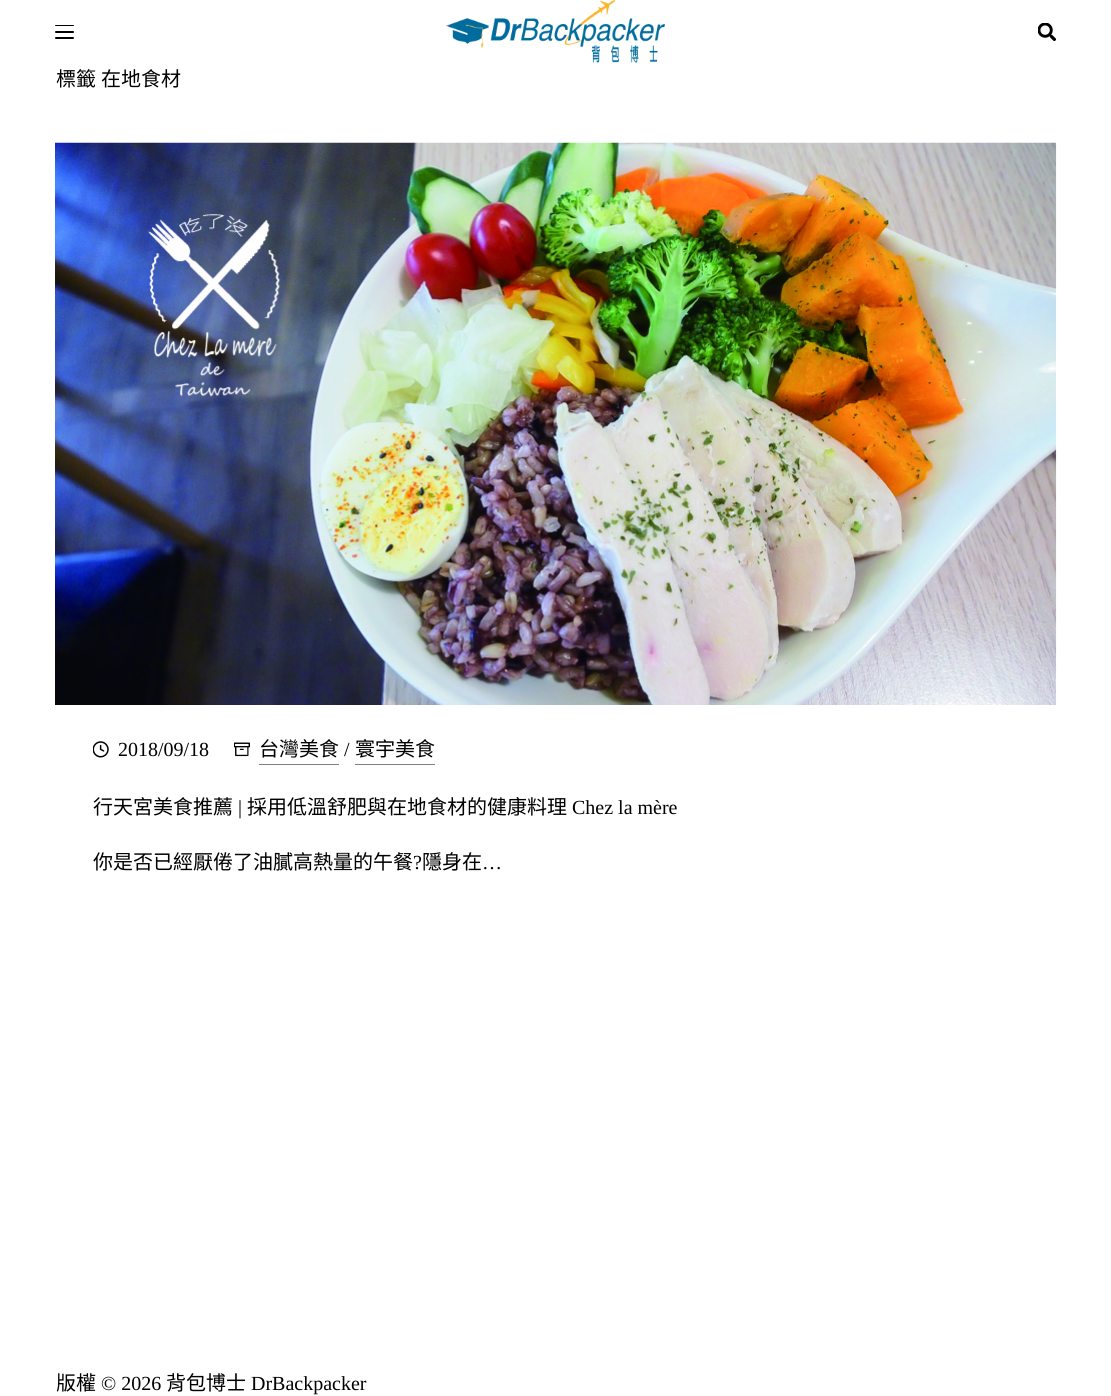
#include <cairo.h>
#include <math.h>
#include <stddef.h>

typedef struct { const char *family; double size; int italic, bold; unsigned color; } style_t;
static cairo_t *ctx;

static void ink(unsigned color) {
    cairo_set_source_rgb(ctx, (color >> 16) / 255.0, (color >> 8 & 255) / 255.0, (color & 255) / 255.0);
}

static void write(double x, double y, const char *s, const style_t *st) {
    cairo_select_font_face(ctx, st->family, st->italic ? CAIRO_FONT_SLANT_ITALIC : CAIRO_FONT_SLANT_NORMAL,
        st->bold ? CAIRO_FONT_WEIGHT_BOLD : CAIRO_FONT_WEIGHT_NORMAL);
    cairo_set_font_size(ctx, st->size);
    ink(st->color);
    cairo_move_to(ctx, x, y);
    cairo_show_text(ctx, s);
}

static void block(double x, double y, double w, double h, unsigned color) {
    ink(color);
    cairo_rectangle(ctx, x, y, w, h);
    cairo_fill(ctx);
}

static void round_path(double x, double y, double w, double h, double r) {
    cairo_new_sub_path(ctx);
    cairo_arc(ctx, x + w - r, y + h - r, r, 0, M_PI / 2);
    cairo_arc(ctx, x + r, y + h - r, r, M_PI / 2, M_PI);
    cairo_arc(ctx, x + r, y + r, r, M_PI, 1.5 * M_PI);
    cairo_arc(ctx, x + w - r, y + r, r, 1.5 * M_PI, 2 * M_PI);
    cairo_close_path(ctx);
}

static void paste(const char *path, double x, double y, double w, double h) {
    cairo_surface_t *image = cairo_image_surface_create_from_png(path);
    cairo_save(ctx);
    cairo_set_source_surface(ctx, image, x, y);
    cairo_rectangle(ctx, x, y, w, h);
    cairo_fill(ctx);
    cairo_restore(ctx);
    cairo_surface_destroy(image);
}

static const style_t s1 = {"Noto Sans CJK TC", 20, 0, 0, 0x000000};
static const style_t s2 = {"Liberation Serif", 20, 0, 0, 0x000000};

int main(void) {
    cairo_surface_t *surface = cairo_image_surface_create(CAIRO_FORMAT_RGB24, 1111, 1396);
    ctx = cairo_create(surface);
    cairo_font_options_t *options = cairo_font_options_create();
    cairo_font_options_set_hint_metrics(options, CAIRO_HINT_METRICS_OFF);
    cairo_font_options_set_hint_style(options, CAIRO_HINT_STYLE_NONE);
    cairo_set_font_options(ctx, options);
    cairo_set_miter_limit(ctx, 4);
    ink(0xffffff);
    cairo_paint(ctx);
    ink(0x000000);
    round_path(55, 25, 19, 1, 0.5);
    cairo_fill(ctx);
    round_path(55, 31, 19, 2, 1);
    cairo_fill(ctx);
    round_path(55, 37, 19, 2, 1);
    cairo_fill(ctx);
    paste("pic1.png", 446, 0, 219, 63);
    paste("pic2.png", 1038, 23, 18, 18);
    write(56, 86, "標籤", &s1);
    write(101, 86, "在地食材", &s1);
    paste("pic3.png", 55, 142, 1002, 563);
    paste("pic4.png", 93, 741, 16, 17);
    write(118, 756, "2018/09/18", &s2);
    paste("pic5.png", 234, 742, 16, 15);
    write(259, 756, "台灣美食", &s1);
    block(259, 764, 80, 1, 0x808080);
    write(344, 756, "/", &s2);
    write(355, 756, "寰宇美食", &s1);
    block(355, 764, 80, 1, 0x808080);
    write(93, 814, "行天宮美食推薦", &s1);
    write(238, 814, "|", &s2);
    write(247, 814, "採用低溫舒肥與在地食材的健康料理", &s1);
    write(572, 814, "Chez la mère", &s2);
    write(93, 869, "你是否已經厭倦了油膩高熱量的午餐", &s1);
    write(413, 869, "?", &s2);
    write(422, 869, "隱身在", &s1);
    write(482, 869, "…", &s2);
    write(56, 1390, "版權", &s1);
    write(101, 1390, "© 2026", &s2);
    write(166, 1390, "背包博士", &s1);
    write(251, 1390, "DrBackpacker", &s2);
    cairo_surface_write_to_png(surface, "screenshot.png");
    cairo_font_options_destroy(options);
    cairo_destroy(ctx);
    cairo_surface_destroy(surface);
    return 0;
}
